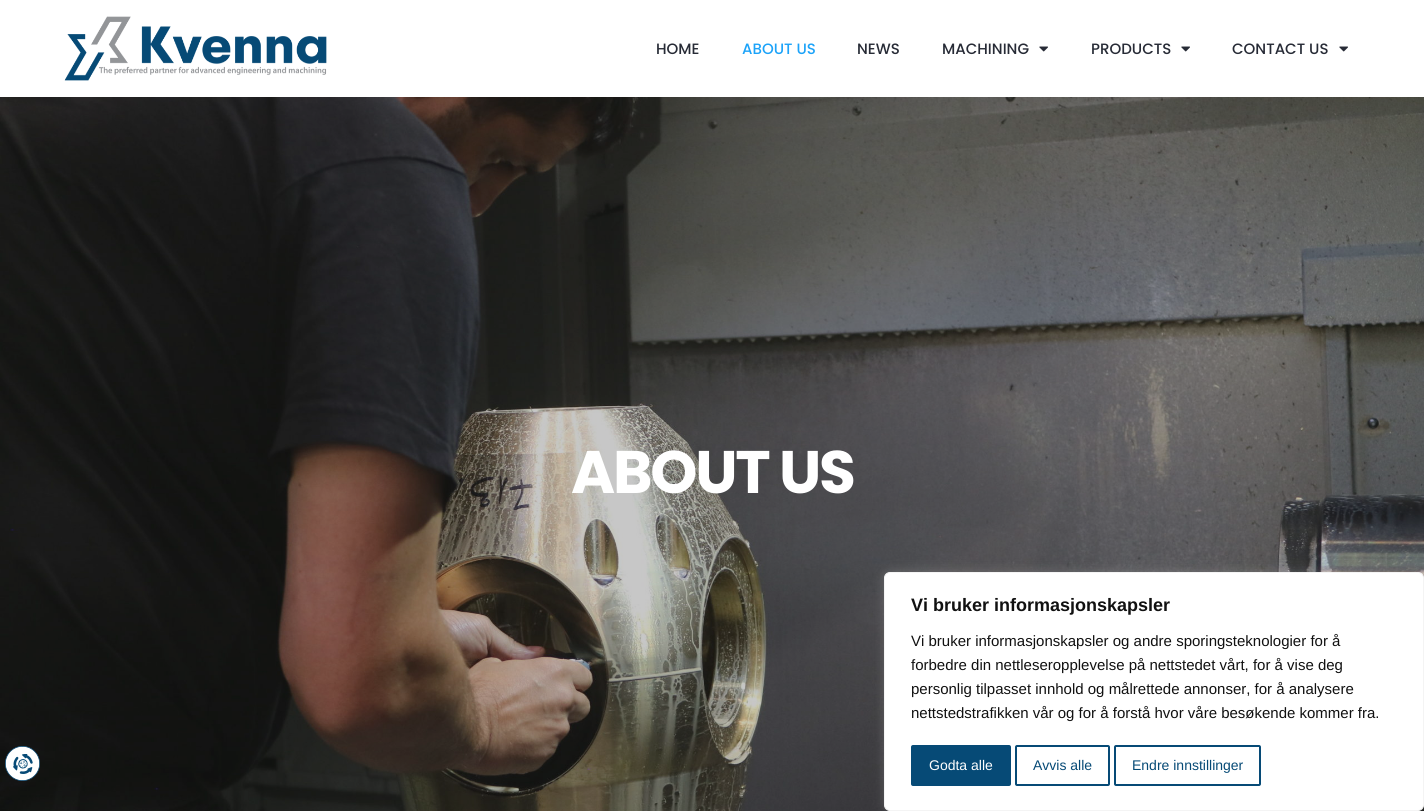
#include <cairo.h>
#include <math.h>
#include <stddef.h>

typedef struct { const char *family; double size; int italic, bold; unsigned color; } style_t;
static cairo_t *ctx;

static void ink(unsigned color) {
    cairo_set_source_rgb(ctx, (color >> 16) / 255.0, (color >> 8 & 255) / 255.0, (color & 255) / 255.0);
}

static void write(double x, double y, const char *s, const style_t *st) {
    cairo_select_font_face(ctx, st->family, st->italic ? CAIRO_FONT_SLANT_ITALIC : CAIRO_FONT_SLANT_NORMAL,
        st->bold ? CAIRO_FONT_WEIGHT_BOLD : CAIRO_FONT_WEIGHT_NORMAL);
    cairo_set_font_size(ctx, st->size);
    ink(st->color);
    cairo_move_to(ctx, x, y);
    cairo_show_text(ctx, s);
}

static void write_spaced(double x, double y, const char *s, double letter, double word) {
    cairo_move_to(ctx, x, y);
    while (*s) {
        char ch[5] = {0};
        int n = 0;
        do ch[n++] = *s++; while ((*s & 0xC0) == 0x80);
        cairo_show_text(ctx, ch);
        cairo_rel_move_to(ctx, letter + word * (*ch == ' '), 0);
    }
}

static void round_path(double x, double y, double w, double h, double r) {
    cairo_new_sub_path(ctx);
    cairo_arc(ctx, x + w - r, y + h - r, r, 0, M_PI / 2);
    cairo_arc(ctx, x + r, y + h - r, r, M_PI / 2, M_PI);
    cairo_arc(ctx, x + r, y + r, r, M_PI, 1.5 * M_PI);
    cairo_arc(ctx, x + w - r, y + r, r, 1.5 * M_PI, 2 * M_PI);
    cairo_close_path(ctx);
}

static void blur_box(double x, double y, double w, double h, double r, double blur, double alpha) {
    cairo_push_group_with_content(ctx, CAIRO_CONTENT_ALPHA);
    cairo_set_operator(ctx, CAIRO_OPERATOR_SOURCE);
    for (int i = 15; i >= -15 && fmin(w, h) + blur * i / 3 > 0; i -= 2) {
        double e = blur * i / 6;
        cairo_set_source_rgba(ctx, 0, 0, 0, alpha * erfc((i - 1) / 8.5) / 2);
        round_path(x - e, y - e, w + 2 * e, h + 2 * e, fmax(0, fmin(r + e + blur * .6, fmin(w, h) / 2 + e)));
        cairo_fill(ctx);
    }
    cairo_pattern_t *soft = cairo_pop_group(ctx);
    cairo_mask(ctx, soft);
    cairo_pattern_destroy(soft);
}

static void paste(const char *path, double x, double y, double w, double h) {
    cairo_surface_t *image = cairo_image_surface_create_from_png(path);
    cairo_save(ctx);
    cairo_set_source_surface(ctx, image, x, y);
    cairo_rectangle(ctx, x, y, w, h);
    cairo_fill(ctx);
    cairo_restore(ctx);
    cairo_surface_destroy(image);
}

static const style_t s1 = {"Poppins Medium", 15, 0, 0, 0x272b36};
static const style_t s2 = {"Poppins Medium", 15, 0, 0, 0x1ca3f9};
static const style_t s3 = {"Liberation Sans", 18, 0, 1, 0x111111};
static const style_t s4 = {"Liberation Sans", 15, 0, 0, 0x111111};
static const style_t s5 = {"Liberation Sans", 14, 0, 0, 0xffffff};
static const style_t s6 = {"Liberation Sans", 14, 0, 0, 0x064a76};

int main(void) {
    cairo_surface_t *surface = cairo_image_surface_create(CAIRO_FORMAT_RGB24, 1424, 811);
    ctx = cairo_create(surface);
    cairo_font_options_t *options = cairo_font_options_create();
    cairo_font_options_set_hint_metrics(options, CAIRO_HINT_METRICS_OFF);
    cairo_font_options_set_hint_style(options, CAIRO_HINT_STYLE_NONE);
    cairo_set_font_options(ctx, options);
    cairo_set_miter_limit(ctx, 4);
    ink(0xffffff);
    cairo_paint(ctx);
    paste("pic1.png", 64, 16, 263, 65);
    write(656, 54, "HOME", &s1);
    write(742, 54, "ABOUT US", &s2);
    write(857, 54, "NEWS", &s1);
    write(942, 54, "MACHINING", &s1);
    paste("pic2.png", 1039, 46, 9, 6);
    write(1091, 54, "PRODUCTS", &s1);
    paste("pic2.png", 1181, 46, 9, 6);
    write(1232, 54, "CONTACT US", &s1);
    paste("pic2.png", 1339, 46, 9, 6);
    paste("pic3.png", 0, 97, 1424, 714);
    cairo_select_font_face(ctx, "Poppins", CAIRO_FONT_SLANT_NORMAL, CAIRO_FONT_WEIGHT_BOLD);
    cairo_set_font_size(ctx, 60);
    ink(0xffffff);
    write_spaced(571, 493, "ABOUT US", -2.25, 0);
    cairo_new_path(ctx);
    cairo_arc(ctx, 22.5, 763.5, 17.15, 0, 2 * M_PI);
    cairo_fill_preserve(ctx);
    ink(0x064a76);
    cairo_set_line_width(ctx, 0.7);
    cairo_stroke(ctx);
    paste("pic4.png", 13, 754, 20, 20);
    ink(0xacabab);
    blur_box(884, 571, 540, 239, 6, 5, 0.3);
    ink(0xffffff);
    round_path(884.5, 572.5, 539, 238, 5.5);
    cairo_fill_preserve(ctx);
    ink(0xf4f4f4);
    cairo_set_line_width(ctx, 1);
    cairo_stroke(ctx);
    write(911, 611, "Vi bruker informasjonskapsler", &s3);
    write(911, 646, "Vi bruker informasjonskapsler og andre sporingsteknologier for å", &s4);
    write(911, 670, "forbedre din nettleseropplevelse på nettstedet vårt, for å vise deg", &s4);
    write(911, 694, "personlig tilpasset innhold og målrettede annonser, for å analysere", &s4);
    write(911, 718, "nettstedstrafikken vår og for å forstå hvor våre besøkende kommer fra.", &s4);
    ink(0x064a76);
    round_path(912, 746, 98, 39, 1);
    cairo_fill_preserve(ctx);
    cairo_set_line_width(ctx, 2);
    cairo_stroke(ctx);
    write(929, 770, "Godta alle", &s5);
    round_path(1016, 746, 93, 39, 1);
    ink(0x064a76);
    cairo_stroke(ctx);
    write(1033, 770, "Avvis alle", &s6);
    round_path(1115, 746, 145, 39, 1);
    cairo_stroke(ctx);
    write(1132, 770, "Endre innstillinger", &s6);
    cairo_surface_write_to_png(surface, "screenshot.png");
    cairo_font_options_destroy(options);
    cairo_destroy(ctx);
    cairo_surface_destroy(surface);
    return 0;
}
